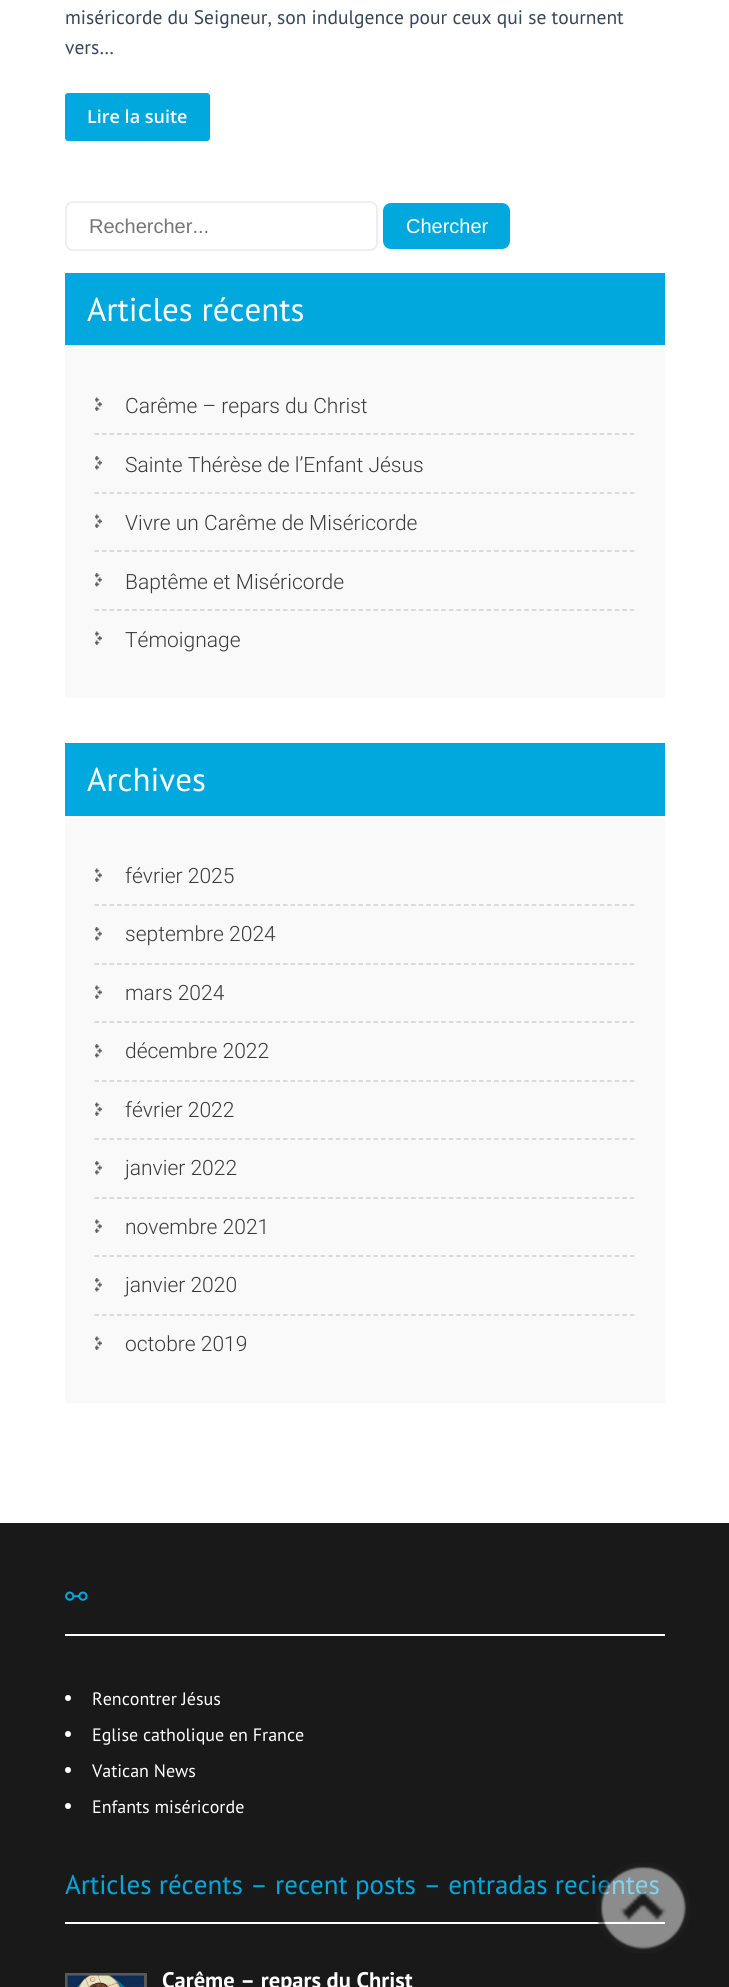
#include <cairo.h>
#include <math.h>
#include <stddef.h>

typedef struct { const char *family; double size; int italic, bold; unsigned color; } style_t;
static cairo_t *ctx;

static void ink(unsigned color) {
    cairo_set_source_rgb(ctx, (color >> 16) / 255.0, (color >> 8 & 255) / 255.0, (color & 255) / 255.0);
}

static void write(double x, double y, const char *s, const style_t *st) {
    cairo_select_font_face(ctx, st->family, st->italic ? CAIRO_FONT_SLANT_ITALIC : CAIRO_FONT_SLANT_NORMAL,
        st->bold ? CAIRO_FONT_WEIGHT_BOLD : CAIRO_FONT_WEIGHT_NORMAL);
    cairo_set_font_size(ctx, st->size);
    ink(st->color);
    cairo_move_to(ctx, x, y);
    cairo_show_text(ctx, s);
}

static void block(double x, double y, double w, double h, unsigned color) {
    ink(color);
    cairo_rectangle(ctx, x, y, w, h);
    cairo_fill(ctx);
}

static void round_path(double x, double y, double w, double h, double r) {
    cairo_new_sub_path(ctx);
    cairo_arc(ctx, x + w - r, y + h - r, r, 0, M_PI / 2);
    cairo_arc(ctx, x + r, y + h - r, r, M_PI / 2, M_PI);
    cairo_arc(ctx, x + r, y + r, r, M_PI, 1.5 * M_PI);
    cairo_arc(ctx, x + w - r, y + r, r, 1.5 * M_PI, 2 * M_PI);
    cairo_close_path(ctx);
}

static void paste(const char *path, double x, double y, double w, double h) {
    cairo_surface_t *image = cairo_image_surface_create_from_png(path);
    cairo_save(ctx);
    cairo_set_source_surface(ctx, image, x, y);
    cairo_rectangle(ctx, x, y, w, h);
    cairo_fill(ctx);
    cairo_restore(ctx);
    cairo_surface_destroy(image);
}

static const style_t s1 = {"PT Sans", 19.5, 0, 0, 0x364558};
static const style_t s2 = {"Open Sans SemiBold", 18, 0, 0, 0xffffff};
static const style_t s3 = {"Liberation Sans", 20, 0, 0, 0x757575};
static const style_t s4 = {"Liberation Sans", 20, 0, 0, 0xffffff};
static const style_t s5 = {"PT Sans", 33, 0, 0, 0xffffff};
static const style_t s6 = {"Roboto Light", 21, 0, 0, 0x3b3b3b};
static const style_t s7 = {"DejaVu Sans", 27, 0, 0, 0x01a8dd};
static const style_t s8 = {"PT Sans", 18, 0, 0, 0xffffff};
static const style_t s9 = {"PT Sans", 27, 0, 0, 0x01a8dd};
static const style_t s10 = {"PT Sans", 22.5, 0, 1, 0xffffff};

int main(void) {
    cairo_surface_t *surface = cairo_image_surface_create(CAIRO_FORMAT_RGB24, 729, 1987);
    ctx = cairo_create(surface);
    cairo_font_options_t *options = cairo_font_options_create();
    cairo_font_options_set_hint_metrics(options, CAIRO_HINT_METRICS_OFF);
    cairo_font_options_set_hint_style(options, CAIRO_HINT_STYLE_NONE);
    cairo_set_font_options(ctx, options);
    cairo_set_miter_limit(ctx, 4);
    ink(0xffffff);
    cairo_paint(ctx);
    write(65, 24, "miséricorde du Seigneur, son indulgence pour ceux qui se tournent", &s1);
    write(65, 54, "vers…", &s1);
    ink(0x01a8dd);
    round_path(65, 93, 145, 48, 3);
    cairo_fill(ctx);
    write(87, 123, "Lire la suite", &s2);
    round_path(66, 202, 311, 48, 7);
    ink(0xeeeeee);
    cairo_stroke(ctx);
    write(89, 233, "Rechercher...", &s3);
    ink(0x01a8dd);
    round_path(383, 203, 127, 46, 8);
    cairo_fill(ctx);
    write(406, 233, "Chercher", &s4);
    block(65, 273, 600, 72, 0x01a8dd);
    write(87, 321, "Articles récents", &s5);
    block(65, 347, 600, 351, 0xf9f9f9);
    paste("pic1.png", 95, 397, 7, 14);
    cairo_new_path(ctx);
    cairo_move_to(ctx, 94.5, 434);
    cairo_line_to(ctx, 634.5, 434);
    ink(0xd0cfcf);
    cairo_set_line_width(ctx, 1.5);
    cairo_set_dash(ctx, (double[]){4.5, 3.04}, 2, 0);
    cairo_stroke(ctx);
    write(125, 413, "Carême – repars du Christ", &s6);
    paste("pic2.png", 95, 456, 7, 14);
    cairo_new_path(ctx);
    cairo_move_to(ctx, 94.5, 493);
    cairo_line_to(ctx, 634.5, 493);
    ink(0xd0cfcf);
    cairo_stroke(ctx);
    write(125, 472, "Sainte Thérèse de l’Enfant Jésus", &s6);
    paste("pic1.png", 95, 514, 7, 14);
    cairo_new_path(ctx);
    cairo_move_to(ctx, 94.5, 551);
    cairo_line_to(ctx, 634.5, 551);
    ink(0xd0cfcf);
    cairo_stroke(ctx);
    write(125, 530, "Vivre un Carême de Miséricorde", &s6);
    paste("pic2.png", 95, 573, 7, 14);
    cairo_new_path(ctx);
    cairo_move_to(ctx, 94.5, 610);
    cairo_line_to(ctx, 634.5, 610);
    ink(0xd0cfcf);
    cairo_stroke(ctx);
    write(125, 589, "Baptême et Miséricorde", &s6);
    paste("pic1.png", 95, 631, 7, 14);
    write(125, 647, "Témoignage", &s6);
    block(65, 743, 600, 73, 0x01a8dd);
    write(87, 791, "Archives", &s5);
    block(65, 818, 600, 585, 0xf9f9f9);
    paste("pic1.png", 95, 868, 7, 14);
    cairo_new_path(ctx);
    cairo_move_to(ctx, 94.5, 905);
    cairo_line_to(ctx, 634.5, 905);
    ink(0xd0cfcf);
    cairo_stroke(ctx);
    write(125, 883, "février 2025", &s6);
    paste("pic2.png", 95, 927, 7, 14);
    cairo_new_path(ctx);
    cairo_move_to(ctx, 94.5, 964);
    cairo_line_to(ctx, 634.5, 964);
    ink(0xd0cfcf);
    cairo_stroke(ctx);
    write(125, 941, "septembre 2024", &s6);
    paste("pic1.png", 95, 985, 7, 14);
    cairo_new_path(ctx);
    cairo_move_to(ctx, 94.5, 1022);
    cairo_line_to(ctx, 634.5, 1022);
    ink(0xd0cfcf);
    cairo_stroke(ctx);
    write(125, 1000, "mars 2024", &s6);
    paste("pic2.png", 95, 1044, 7, 14);
    cairo_new_path(ctx);
    cairo_move_to(ctx, 94.5, 1081);
    cairo_line_to(ctx, 634.5, 1081);
    ink(0xd0cfcf);
    cairo_stroke(ctx);
    write(125, 1058, "décembre 2022", &s6);
    paste("pic1.png", 95, 1102, 7, 14);
    cairo_new_path(ctx);
    cairo_move_to(ctx, 94.5, 1139);
    cairo_line_to(ctx, 634.5, 1139);
    ink(0xd0cfcf);
    cairo_stroke(ctx);
    write(125, 1117, "février 2022", &s6);
    paste("pic2.png", 95, 1161, 7, 14);
    cairo_new_path(ctx);
    cairo_move_to(ctx, 94.5, 1198);
    cairo_line_to(ctx, 634.5, 1198);
    ink(0xd0cfcf);
    cairo_stroke(ctx);
    write(125, 1175, "janvier 2022", &s6);
    paste("pic1.png", 95, 1219, 7, 14);
    cairo_new_path(ctx);
    cairo_move_to(ctx, 94.5, 1256);
    cairo_line_to(ctx, 634.5, 1256);
    ink(0xd0cfcf);
    cairo_stroke(ctx);
    write(125, 1234, "novembre 2021", &s6);
    paste("pic2.png", 95, 1278, 7, 14);
    cairo_new_path(ctx);
    cairo_move_to(ctx, 94.5, 1315);
    cairo_line_to(ctx, 634.5, 1315);
    ink(0xd0cfcf);
    cairo_stroke(ctx);
    write(125, 1292, "janvier 2020", &s6);
    paste("pic1.png", 95, 1336, 7, 14);
    write(125, 1351, "octobre 2019", &s6);
    block(0, 1523, 729, 464, 0x1a191a);
    block(65, 1634, 600, 2, 0xffffff);
    write(65, 1606, "⚯", &s7);
    ink(0xffffff);
    cairo_new_path(ctx);
    cairo_arc(ctx, 68, 1698, 3, 0, 2 * M_PI);
    cairo_fill(ctx);
    write(92, 1705, "Rencontrer Jésus", &s8);
    cairo_new_path(ctx);
    cairo_arc(ctx, 68, 1734, 3, 0, 2 * M_PI);
    cairo_fill(ctx);
    write(92, 1741, "Eglise catholique en France", &s8);
    cairo_new_path(ctx);
    cairo_arc(ctx, 68, 1770, 3, 0, 2 * M_PI);
    cairo_fill(ctx);
    write(92, 1777, "Vatican News", &s8);
    cairo_new_path(ctx);
    cairo_arc(ctx, 68, 1806, 3, 0, 2 * M_PI);
    cairo_fill(ctx);
    write(92, 1813, "Enfants miséricorde", &s8);
    block(65, 1922, 600, 2, 0xffffff);
    write(65, 1894, "Articles récents – recent posts – entradas recientes", &s9);
    cairo_rectangle(ctx, 66.5, 1974.5, 79, 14);
    ink(0x595959);
    cairo_set_line_width(ctx, 3);
    cairo_set_dash(ctx, NULL, 0, 0);
    cairo_stroke(ctx);
    paste("pic3.png", 67, 1975, 77, 12);
    write(162, 1988, "Carême – repars du Christ", &s10);
    paste("pic4.png", 596, 1862, 94, 91);
    cairo_surface_write_to_png(surface, "screenshot.png");
    cairo_font_options_destroy(options);
    cairo_destroy(ctx);
    cairo_surface_destroy(surface);
    return 0;
}
